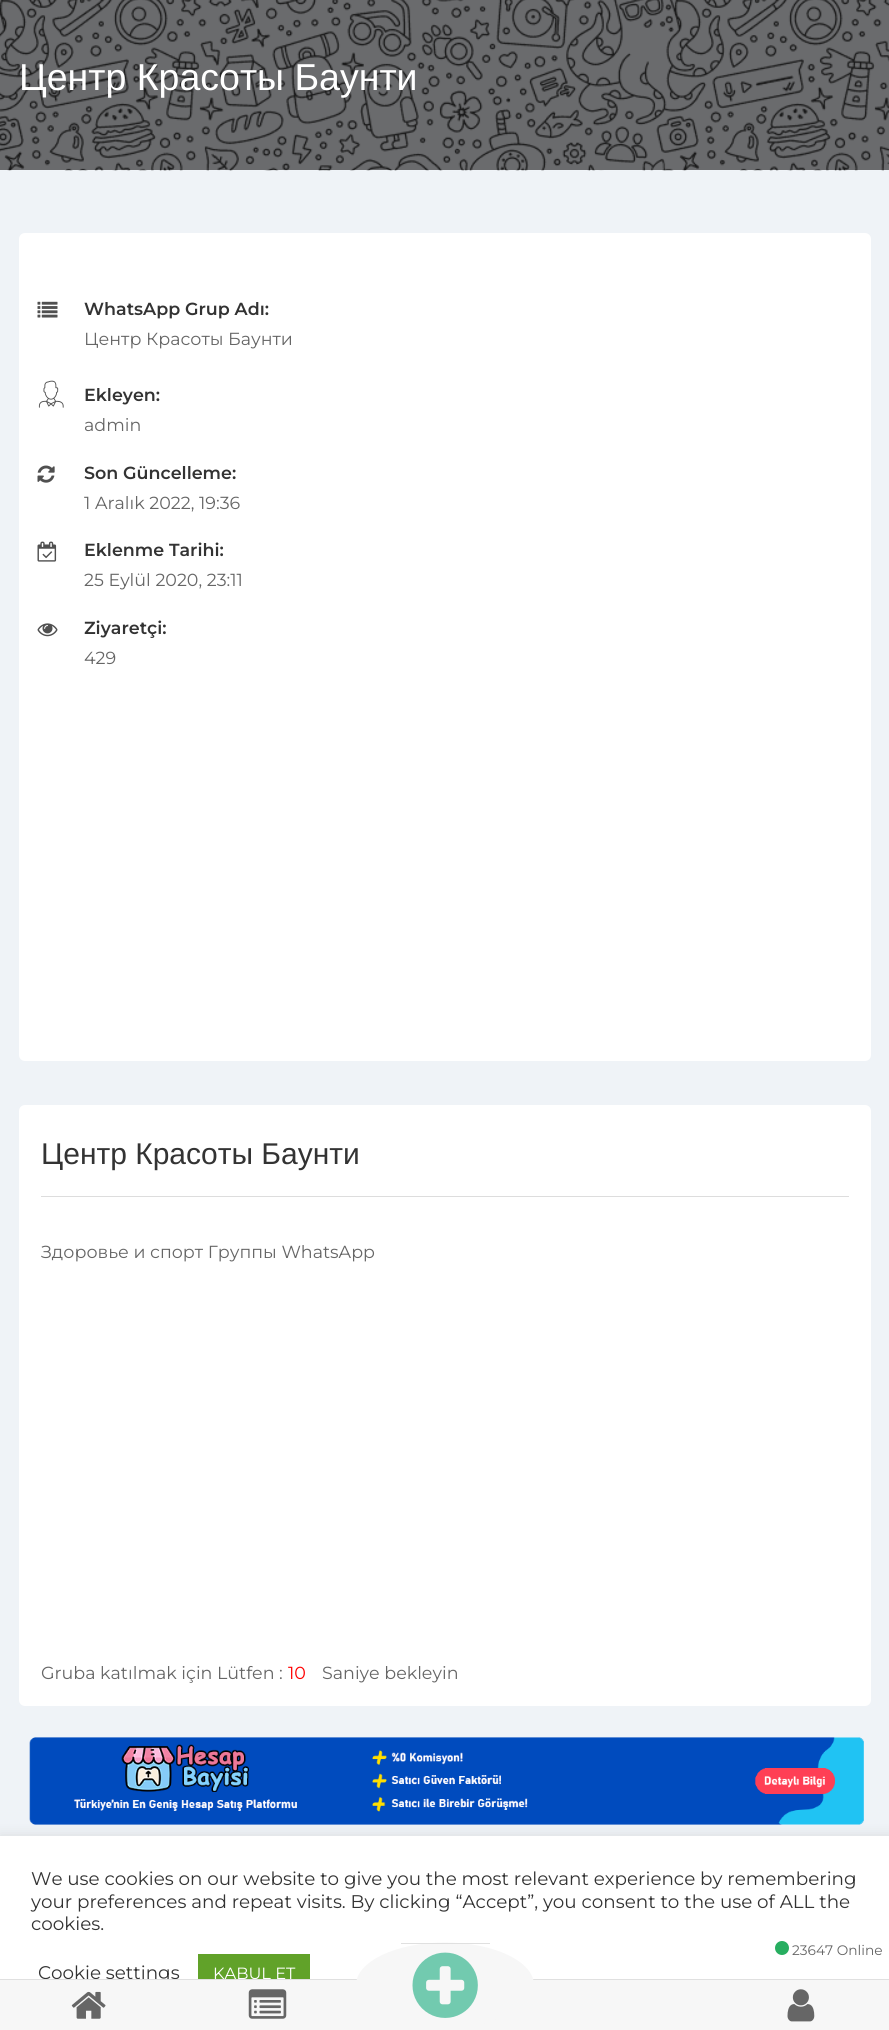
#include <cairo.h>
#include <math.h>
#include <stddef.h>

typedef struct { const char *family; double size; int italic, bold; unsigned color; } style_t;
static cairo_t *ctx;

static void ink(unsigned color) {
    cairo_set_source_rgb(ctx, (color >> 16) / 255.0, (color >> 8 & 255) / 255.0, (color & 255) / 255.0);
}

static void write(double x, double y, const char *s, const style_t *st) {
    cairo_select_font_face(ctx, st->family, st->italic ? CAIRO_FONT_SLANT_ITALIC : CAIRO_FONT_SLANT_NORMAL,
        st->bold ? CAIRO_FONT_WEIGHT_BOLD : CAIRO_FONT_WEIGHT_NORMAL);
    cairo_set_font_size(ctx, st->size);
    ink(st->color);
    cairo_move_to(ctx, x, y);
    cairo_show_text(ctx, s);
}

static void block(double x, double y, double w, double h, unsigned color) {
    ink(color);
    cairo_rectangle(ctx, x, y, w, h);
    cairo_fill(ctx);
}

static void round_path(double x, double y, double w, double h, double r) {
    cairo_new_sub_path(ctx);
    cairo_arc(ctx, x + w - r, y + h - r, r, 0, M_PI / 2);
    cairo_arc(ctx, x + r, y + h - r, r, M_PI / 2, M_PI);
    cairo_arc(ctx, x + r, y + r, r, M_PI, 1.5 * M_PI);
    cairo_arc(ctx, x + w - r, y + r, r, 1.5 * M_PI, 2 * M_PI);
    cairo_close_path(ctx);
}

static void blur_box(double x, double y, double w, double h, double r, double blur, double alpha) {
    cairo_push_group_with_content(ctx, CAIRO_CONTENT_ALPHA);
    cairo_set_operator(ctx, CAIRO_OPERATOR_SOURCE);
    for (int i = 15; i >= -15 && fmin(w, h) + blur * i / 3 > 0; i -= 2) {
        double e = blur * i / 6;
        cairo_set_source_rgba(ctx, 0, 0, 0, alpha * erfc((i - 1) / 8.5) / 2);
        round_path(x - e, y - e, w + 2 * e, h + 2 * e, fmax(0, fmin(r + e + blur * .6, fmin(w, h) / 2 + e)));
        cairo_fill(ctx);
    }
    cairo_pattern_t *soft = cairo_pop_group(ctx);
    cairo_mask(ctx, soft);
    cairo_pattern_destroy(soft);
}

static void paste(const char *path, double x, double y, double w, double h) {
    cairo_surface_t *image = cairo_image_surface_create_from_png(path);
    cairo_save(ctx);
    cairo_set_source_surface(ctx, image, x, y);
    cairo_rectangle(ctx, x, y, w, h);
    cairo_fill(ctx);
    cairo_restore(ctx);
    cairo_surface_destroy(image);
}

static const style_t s1 = {"Liberation Sans", 37.5, 0, 0, 0xffffff};
static const style_t s2 = {"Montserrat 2 Thin", 17.5, 0, 0, 0x333333};
static const style_t s3 = {"Montserrat", 17.5, 0, 0, 0x666666};
static const style_t s4 = {"Montserrat Thin", 17.5, 0, 0, 0x666666};
static const style_t s5 = {"Liberation Sans", 30, 0, 0, 0x333333};
static const style_t s6 = {"Montserrat Thin", 17.5, 0, 0, 0xff0000};
static const style_t s7 = {"Montserrat Thin", 18.35, 0, 0, 0x333333};
static const style_t s8 = {"Montserrat Thin", 16.25, 0, 0, 0xffffff};
static const style_t s9 = {"Montserrat Thin", 13.75, 0, 0, 0x666666};

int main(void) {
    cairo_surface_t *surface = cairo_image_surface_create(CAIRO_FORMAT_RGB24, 889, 2030);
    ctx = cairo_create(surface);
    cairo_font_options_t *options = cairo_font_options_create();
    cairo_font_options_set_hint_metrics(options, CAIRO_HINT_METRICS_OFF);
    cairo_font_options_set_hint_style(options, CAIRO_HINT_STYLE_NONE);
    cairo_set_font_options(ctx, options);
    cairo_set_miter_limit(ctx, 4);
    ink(0xeff3f7);
    cairo_paint(ctx);
    block(0, 0, 889, 170, 0x6a6b6d);
    paste("pic1.png", 0, 0, 889, 171);
    write(19, 90, "Центр Красоты Баунти", &s1);
    round_path(19, 233, 852, 828, 6);
    cairo_fill(ctx);
    paste("pic2.png", 37, 301, 21, 17);
    write(84, 315, "WhatsApp Grup Adı:", &s2);
    write(84, 345, "Центр Красоты Баунти", &s3);
    paste("pic3.png", 38, 380, 26, 28);
    write(84, 401, "Ekleyen:", &s2);
    write(84, 431, "admin", &s4);
    paste("pic4.png", 37, 465, 18, 18);
    write(84, 479, "Son Güncelleme:", &s2);
    write(84, 509, "1 Aralık 2022, 19:36", &s4);
    paste("pic5.png", 37, 541, 20, 21);
    write(84, 556, "Eklenme Tarihi:", &s2);
    write(84, 586, "25 Eylül 2020, 23:11", &s4);
    paste("pic6.png", 37, 623, 21, 14);
    write(84, 634, "Ziyaretçi:", &s2);
    write(84, 664, "429", &s4);
    ink(0xffffff);
    round_path(19, 1105, 852, 601, 6);
    cairo_fill(ctx);
    write(41, 1164, "Центр Красоты Баунти", &s5);
    block(41, 1196, 808, 1, 0xdddddd);
    write(41, 1258, "Здоровье и спорт Группы WhatsApp", &s3);
    write(41, 1679, "Gruba katılmak için Lütfen :", &s4);
    write(288, 1679, "10", &s6);
    write(322, 1679, "Saniye bekleyin", &s4);
    paste("pic7.png", 29, 1737, 835, 88);
    ink(0xacabab);
    blur_box(0, 1835, 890, 194, 0, 6, 0.3);
    block(0, 1836, 889, 143, 0xffffff);
    write(31, 1885, "We use cookies on our website to give you the most relevant experience by remembering", &s7);
    write(31, 1908, "your preferences and repeat visits. By clicking “Accept”, you consent to the use of ALL the", &s7);
    write(31, 1930, "cookies.", &s7);
    write(38, 1979, "Cookie settings", &s7);
    block(198, 1954, 112, 25, 0x61a229);
    write(213, 1979, "KABUL ET", &s8);
    block(0, 1980, 889, 50, 0xf7f7f7);
    block(0, 1979, 889, 1, 0xe0e0e0);
    paste("pic8.png", 71, 1991, 35, 28);
    paste("pic9.png", 248, 1989, 39, 30);
    ink(0xf7f7f7);
    cairo_new_path(ctx);
    cairo_move_to(ctx, 445, 1942.5);
    cairo_curve_to(ctx, 494, 1942.5, 534, 1961.5, 534, 1985);
    cairo_curve_to(ctx, 534, 2008.5, 494, 2027.5, 445, 2027.5);
    cairo_curve_to(ctx, 396, 2027.5, 356, 2008.5, 356, 1985);
    cairo_curve_to(ctx, 356, 1961.5, 396, 1942.5, 445, 1942.5);
    cairo_close_path(ctx);
    cairo_fill(ctx);
    block(401, 1943, 89, 1, 0xe0e0e0);
    paste("pic10.png", 412, 1952, 66, 66);
    paste("pic11.png", 787, 1989, 28, 33);
    ink(0x27ae60);
    cairo_arc(ctx, 782, 1948, 7, 0, 2 * M_PI);
    cairo_fill(ctx);
    write(792, 1955, "23647 Online", &s9);
    cairo_surface_write_to_png(surface, "screenshot.png");
    cairo_font_options_destroy(options);
    cairo_destroy(ctx);
    cairo_surface_destroy(surface);
    return 0;
}
